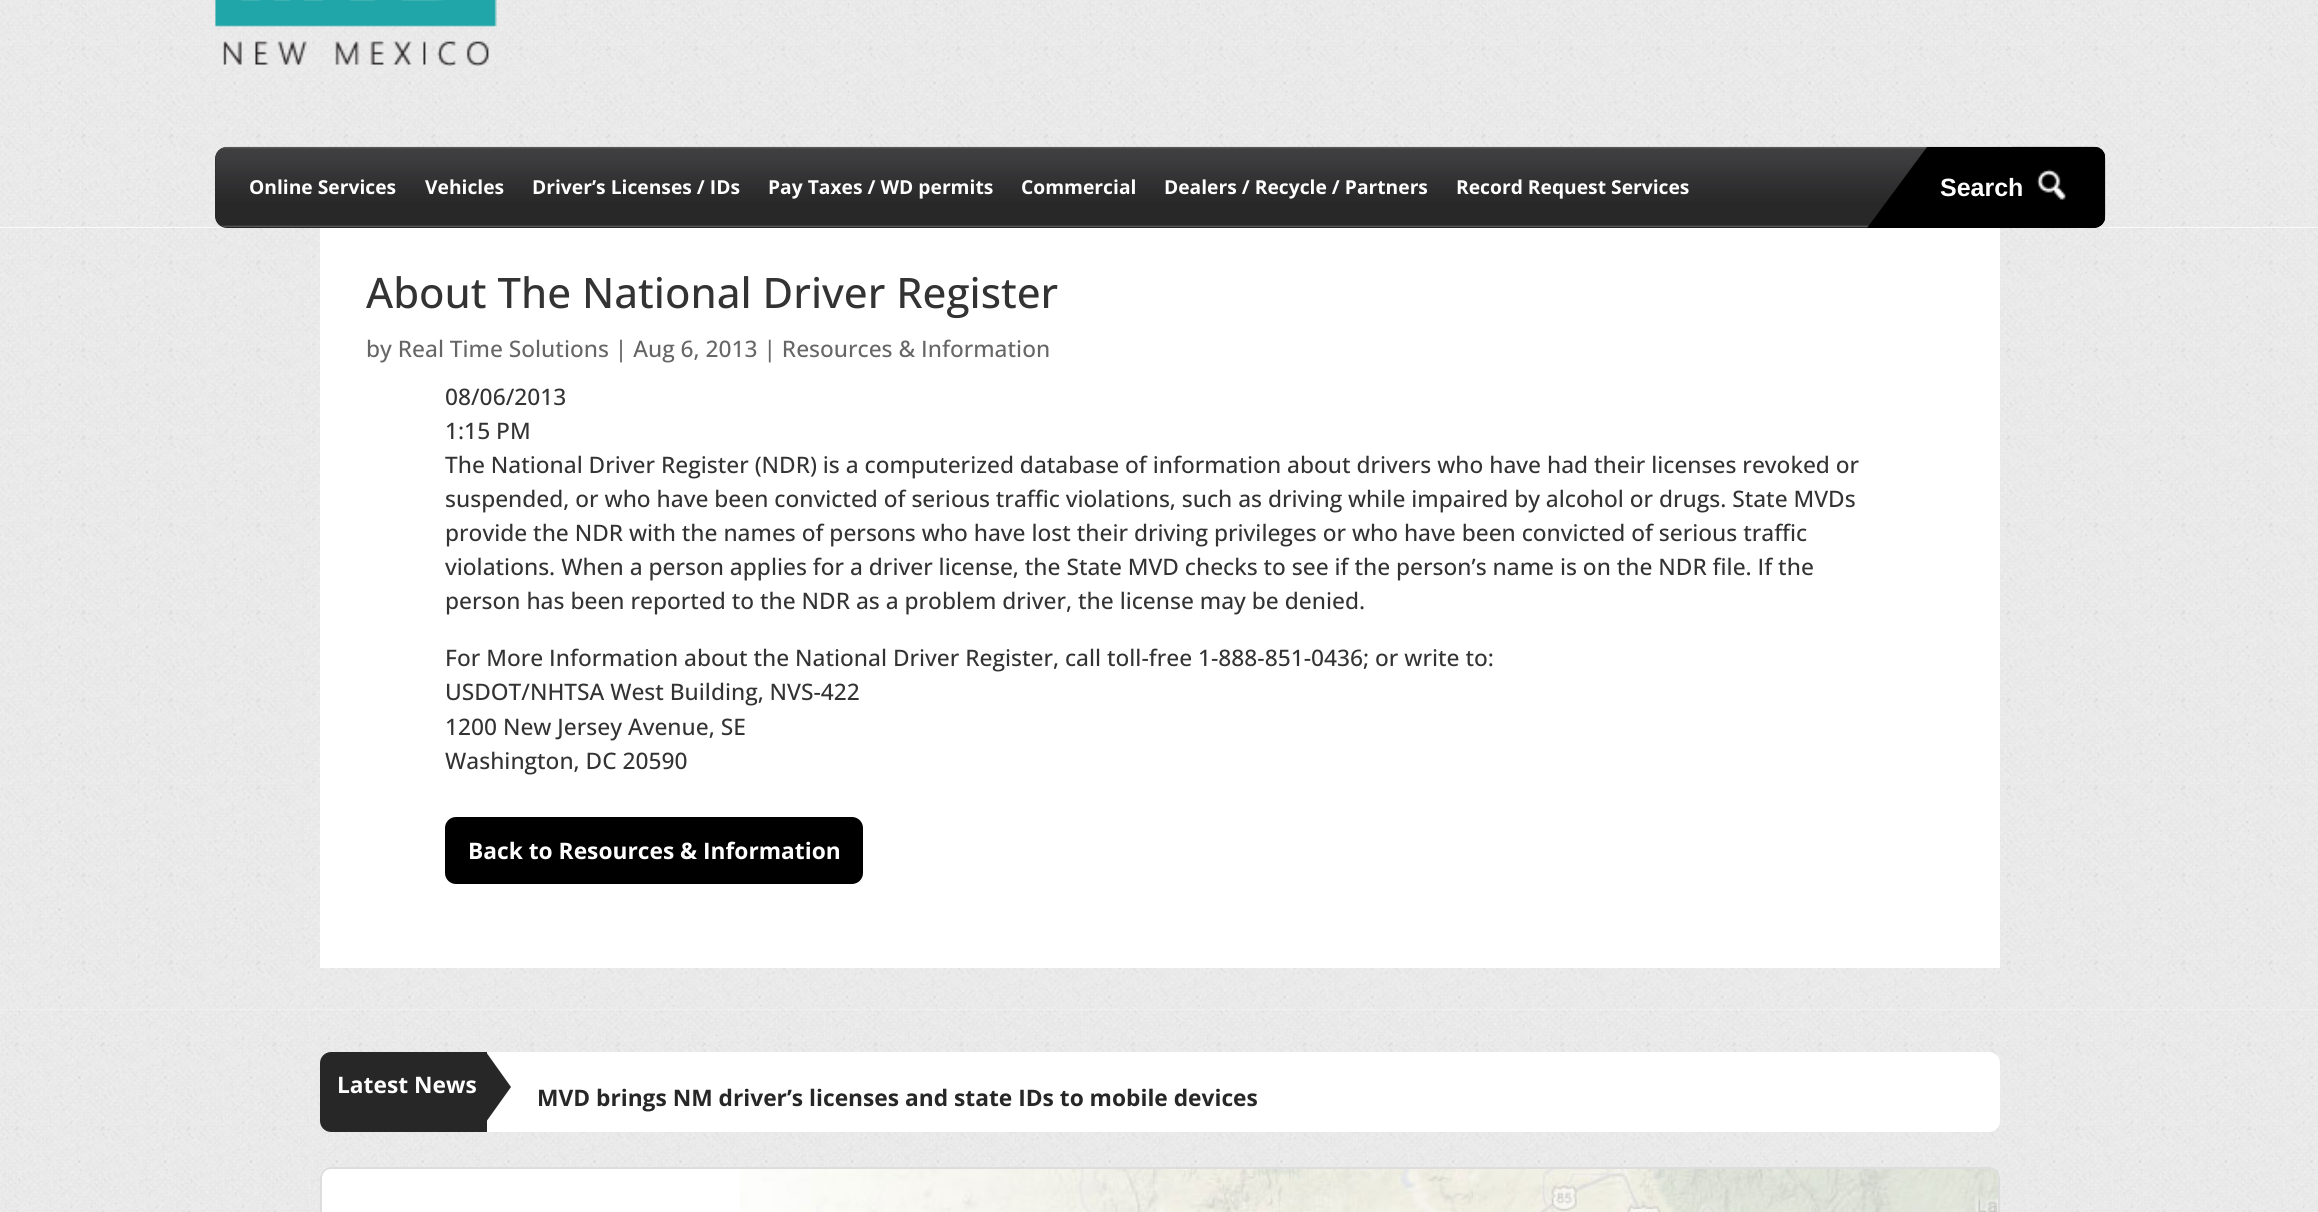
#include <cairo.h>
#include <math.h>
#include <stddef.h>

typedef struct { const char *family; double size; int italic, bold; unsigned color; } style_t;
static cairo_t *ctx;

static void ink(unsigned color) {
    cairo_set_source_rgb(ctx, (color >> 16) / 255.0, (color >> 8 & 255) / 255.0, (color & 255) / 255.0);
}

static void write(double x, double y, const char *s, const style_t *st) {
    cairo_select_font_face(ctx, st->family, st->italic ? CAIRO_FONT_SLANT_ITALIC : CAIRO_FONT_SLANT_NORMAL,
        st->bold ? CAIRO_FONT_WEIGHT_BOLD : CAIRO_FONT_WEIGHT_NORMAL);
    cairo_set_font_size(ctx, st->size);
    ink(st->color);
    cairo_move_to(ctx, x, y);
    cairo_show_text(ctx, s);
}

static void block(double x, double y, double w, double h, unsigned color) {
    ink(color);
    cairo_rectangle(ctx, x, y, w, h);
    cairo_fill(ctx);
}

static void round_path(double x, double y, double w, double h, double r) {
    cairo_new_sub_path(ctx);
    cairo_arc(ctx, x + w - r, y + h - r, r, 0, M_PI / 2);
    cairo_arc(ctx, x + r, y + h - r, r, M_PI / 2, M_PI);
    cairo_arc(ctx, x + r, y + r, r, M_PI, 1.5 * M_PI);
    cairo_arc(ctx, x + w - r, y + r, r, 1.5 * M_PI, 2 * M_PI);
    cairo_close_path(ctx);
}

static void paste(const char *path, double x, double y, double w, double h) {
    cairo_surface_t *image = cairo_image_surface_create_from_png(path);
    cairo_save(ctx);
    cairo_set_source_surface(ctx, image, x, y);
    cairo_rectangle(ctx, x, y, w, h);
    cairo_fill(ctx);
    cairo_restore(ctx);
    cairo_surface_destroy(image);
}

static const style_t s1 = {"Open Sans", 19.25, 0, 1, 0xffffff};
static const style_t s2 = {"Liberation Sans", 25, 0, 1, 0xffffff};
static const style_t s3 = {"Open Sans Medium", 42, 0, 0, 0x333333};
static const style_t s4 = {"Open Sans Medium", 22.75, 0, 0, 0x666666};
static const style_t s5 = {"Open Sans Medium", 22.75, 0, 0, 0x333333};
static const style_t s6 = {"Open Sans", 22.75, 0, 1, 0xffffff};
static const style_t s7 = {"Open Sans", 22.75, 0, 1, 0x282728};

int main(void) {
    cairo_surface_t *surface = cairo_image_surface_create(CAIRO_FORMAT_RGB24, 2318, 1212);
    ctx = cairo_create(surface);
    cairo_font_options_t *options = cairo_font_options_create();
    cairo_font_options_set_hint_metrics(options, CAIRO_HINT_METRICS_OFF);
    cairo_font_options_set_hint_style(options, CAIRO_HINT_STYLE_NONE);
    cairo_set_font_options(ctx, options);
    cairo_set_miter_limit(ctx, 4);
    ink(0xffffff);
    cairo_paint(ctx);
    paste("pic1.png", 0, 0, 2318, 228);
    paste("pic2.png", 215, 0, 282, 66);
    ink(0x282728);
    round_path(215, 147, 1890, 81, 12);
    cairo_fill(ctx);
    paste("pic3.png", 215, 146, 1891, 81);
    write(249, 194, "Online Services", &s1);
    write(425, 194, "Vehicles", &s1);
    write(532, 194, "Driver’s Licenses / IDs", &s1);
    write(768, 194, "Pay Taxes / WD permits", &s1);
    write(1021, 194, "Commercial", &s1);
    write(1164, 194, "Dealers / Recycle / Partners", &s1);
    write(1456, 194, "Record Request Services", &s1);
    ink(0x000000);
    cairo_new_path(ctx);
    cairo_move_to(ctx, 1927, 147);
    cairo_line_to(ctx, 2094, 147);
    cairo_curve_to(ctx, 2100, 147, 2105, 152, 2105, 158);
    cairo_line_to(ctx, 2105, 217);
    cairo_curve_to(ctx, 2105, 223, 2100, 228, 2094, 228);
    cairo_line_to(ctx, 1927, 228);
    cairo_close_path(ctx);
    cairo_fill(ctx);
    paste("pic4.png", 2012, 146, 94, 80);
    cairo_new_path(ctx);
    cairo_move_to(ctx, 1927, 147);
    cairo_line_to(ctx, 1927, 228);
    cairo_line_to(ctx, 1867, 228);
    cairo_close_path(ctx);
    cairo_fill(ctx);
    write(1940, 196, "Search", &s2);
    paste("pic5.png", 0, 228, 2318, 782);
    block(320, 228, 1680, 740, 0xffffff);
    write(366, 308, "About The National Driver Register", &s3);
    write(366, 357, "by Real Time Solutions | Aug 6, 2013 | Resources & Information", &s4);
    write(445, 405, "08/06/2013", &s5);
    write(445, 439, "1:15 PM", &s5);
    write(445, 473, "The National Driver Register (NDR) is a computerized database of information about drivers who have had their licenses revoked or", &s5);
    write(445, 507, "suspended, or who have been convicted of serious traffic violations, such as driving while impaired by alcohol or drugs. State MVDs", &s5);
    write(445, 541, "provide the NDR with the names of persons who have lost their driving privileges or who have been convicted of serious traffic", &s5);
    write(445, 575, "violations. When a person applies for a driver license, the State MVD checks to see if the person’s name is on the NDR file. If the", &s5);
    write(445, 609, "person has been reported to the NDR as a problem driver, the license may be denied.", &s5);
    write(445, 666, "For More Information about the National Driver Register, call toll-free 1-888-851-0436; or write to:", &s5);
    write(445, 700, "USDOT/NHTSA West Building, NVS-422", &s5);
    write(445, 735, "1200 New Jersey Avenue, SE", &s5);
    write(445, 769, "Washington, DC 20590", &s5);
    ink(0x000000);
    round_path(445, 817, 418, 67, 11);
    cairo_fill(ctx);
    write(468, 859, "Back to Resources & Information", &s6);
    paste("pic6.png", 0, 1009, 2318, 203);
    round_path(320, 1052, 1680, 80, 11);
    cairo_fill(ctx);
    ink(0x282728);
    cairo_new_path(ctx);
    cairo_move_to(ctx, 331, 1052);
    cairo_line_to(ctx, 487, 1052);
    cairo_line_to(ctx, 487, 1132);
    cairo_line_to(ctx, 331, 1132);
    cairo_curve_to(ctx, 325, 1132, 320, 1127, 320, 1121);
    cairo_line_to(ctx, 320, 1063);
    cairo_curve_to(ctx, 320, 1057, 325, 1052, 331, 1052);
    cairo_close_path(ctx);
    cairo_fill(ctx);
    write(337, 1093, "Latest News", &s6);
    ink(0x282728);
    cairo_new_path(ctx);
    cairo_move_to(ctx, 486, 1122);
    cairo_line_to(ctx, 486, 1052);
    cairo_line_to(ctx, 511, 1087);
    cairo_close_path(ctx);
    cairo_fill(ctx);
    write(537, 1106, "MVD brings NM driver’s licenses and state IDs to mobile devices", &s7);
    ink(0xffffff);
    round_path(320, 1167, 1680, 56, 11);
    cairo_fill(ctx);
    paste("pic7.png", 740, 1168, 1259, 44);
    round_path(321, 1168, 1678, 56, 10);
    ink(0xdddddd);
    cairo_stroke(ctx);
    cairo_surface_write_to_png(surface, "screenshot.png");
    cairo_font_options_destroy(options);
    cairo_destroy(ctx);
    cairo_surface_destroy(surface);
    return 0;
}
